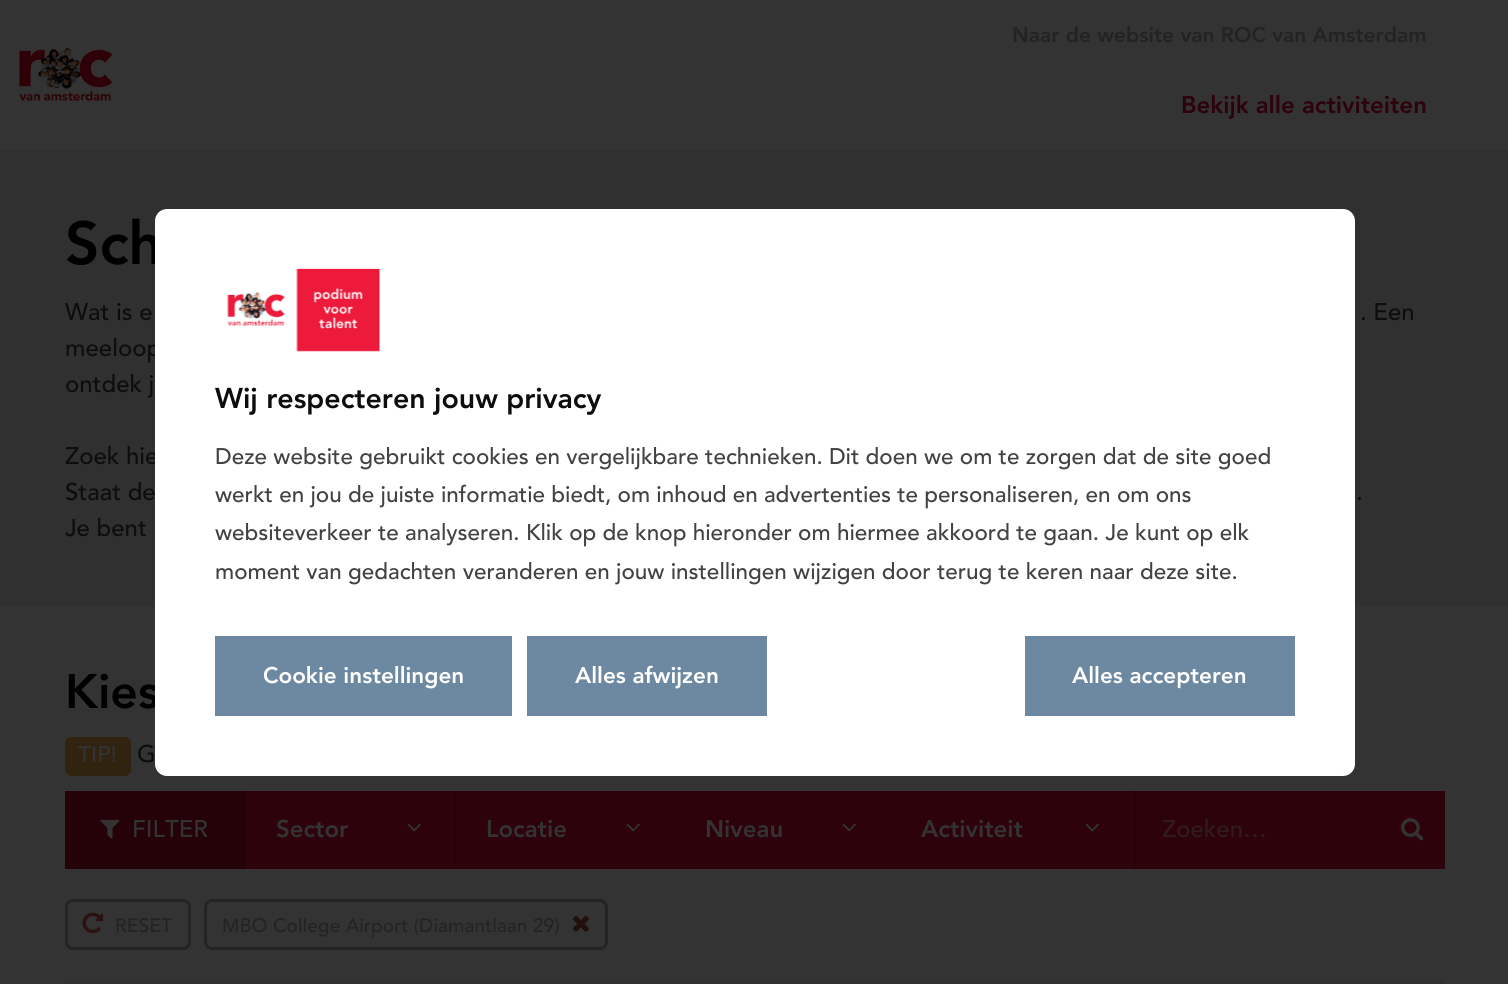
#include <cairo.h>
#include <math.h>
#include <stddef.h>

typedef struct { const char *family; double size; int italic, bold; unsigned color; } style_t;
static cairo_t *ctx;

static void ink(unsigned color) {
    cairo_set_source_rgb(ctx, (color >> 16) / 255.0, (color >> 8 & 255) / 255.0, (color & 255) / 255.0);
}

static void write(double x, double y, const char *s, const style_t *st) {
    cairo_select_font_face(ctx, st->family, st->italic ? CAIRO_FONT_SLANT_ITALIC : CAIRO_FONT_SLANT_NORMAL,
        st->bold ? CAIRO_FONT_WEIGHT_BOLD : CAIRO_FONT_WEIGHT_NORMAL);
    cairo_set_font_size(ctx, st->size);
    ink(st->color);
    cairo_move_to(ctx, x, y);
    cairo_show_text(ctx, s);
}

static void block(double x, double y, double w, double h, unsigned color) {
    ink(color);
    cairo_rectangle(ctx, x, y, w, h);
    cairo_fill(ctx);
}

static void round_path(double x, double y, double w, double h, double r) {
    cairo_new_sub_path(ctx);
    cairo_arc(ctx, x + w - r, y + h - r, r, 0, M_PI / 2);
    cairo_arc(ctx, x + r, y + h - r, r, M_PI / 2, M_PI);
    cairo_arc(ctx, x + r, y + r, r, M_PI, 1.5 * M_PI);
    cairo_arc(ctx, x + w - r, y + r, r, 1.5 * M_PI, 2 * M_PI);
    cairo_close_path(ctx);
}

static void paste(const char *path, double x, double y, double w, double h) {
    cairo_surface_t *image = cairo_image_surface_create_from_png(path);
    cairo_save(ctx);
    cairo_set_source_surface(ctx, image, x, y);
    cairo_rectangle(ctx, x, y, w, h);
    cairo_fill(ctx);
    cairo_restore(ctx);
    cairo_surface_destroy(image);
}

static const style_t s1 = {"Avenir Black", 21, 0, 0, 0x232323};
static const style_t s2 = {"Avenir Black", 24, 0, 0, 0x2d020a};
static const style_t s3 = {"Avenir Black", 60, 0, 0, 0x000000};
static const style_t s4 = {"Avenir Medium", 24, 0, 0, 0x0d0d0d};
static const style_t s5 = {"Avenir Black", 48, 0, 0, 0x000000};
static const style_t s6 = {"Avenir Medium", 22.5, 0, 0, 0x333333};
static const style_t s7 = {"Avenir Medium", 24, 0, 0, 0x333333};
static const style_t s8 = {"Avenir Black", 24, 0, 0, 0x333333};
static const style_t s9 = {"Avenir Medium", 24, 0, 0, 0x301b1f};
static const style_t s10 = {"Avenir Medium", 19.25, 0, 0, 0x232323};
static const style_t s11 = {"Avenir Black", 28.5, 0, 0, 0x0d0d0d};
static const style_t s12 = {"Avenir Medium", 22.5, 0, 0, 0x424242};
static const style_t s13 = {"Avenir Black", 22.5, 0, 0, 0xffffff};

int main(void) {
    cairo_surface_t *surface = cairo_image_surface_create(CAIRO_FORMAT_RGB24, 1508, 984);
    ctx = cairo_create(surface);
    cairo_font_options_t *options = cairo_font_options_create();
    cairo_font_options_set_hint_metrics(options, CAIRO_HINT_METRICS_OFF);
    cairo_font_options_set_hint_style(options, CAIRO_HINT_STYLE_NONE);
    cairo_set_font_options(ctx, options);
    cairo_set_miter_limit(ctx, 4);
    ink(0x333333);
    cairo_paint(ctx);
    paste("pic1.png", 19, 47, 94, 55);
    write(1012, 42, "Naar de website van ROC van Amsterdam", &s1);
    write(1181, 113, "Bekijk alle activiteiten", &s2);
    block(0, 150, 1508, 456, 0x303030);
    write(65, 264, "Sch", &s3);
    write(65, 320, "Wat is e", &s4);
    write(1360, 320, ". Een", &s4);
    write(65, 356, "meeloop", &s4);
    write(65, 392, "ontdek j", &s4);
    write(65, 464, "Zoek hie", &s4);
    write(65, 500, "Staat de", &s4);
    write(1356, 500, ".", &s4);
    write(65, 536, "Je bent", &s4);
    write(65, 708, "Kies", &s5);
    ink(0x302310);
    round_path(65, 737, 66, 39, 6);
    cairo_fill(ctx);
    write(78, 762, "TIP!", &s6);
    write(137, 762, "G", &s4);
    block(1136, 791, 309, 78, 0x2d020a);
    block(65, 791, 181, 78, 0x240208);
    paste("pic2.png", 100, 819, 20, 20);
    write(132, 837, "FILTER", &s7);
    block(246, 791, 209, 78, 0x2d020a);
    write(276, 837, "Sector", &s8);
    paste("pic3.png", 407, 823, 14, 9);
    block(455, 791, 1, 78, 0x240208);
    block(456, 791, 218, 78, 0x2d020a);
    write(486, 837, "Locatie", &s8);
    paste("pic3.png", 626, 823, 14, 9);
    block(674, 791, 1, 78, 0x240208);
    block(675, 791, 215, 78, 0x2d020a);
    write(705, 837, "Niveau", &s8);
    paste("pic3.png", 842, 823, 14, 9);
    block(890, 791, 1, 78, 0x240208);
    block(891, 791, 243, 78, 0x2d020a);
    write(921, 837, "Activiteit", &s8);
    paste("pic3.png", 1085, 823, 14, 9);
    block(1134, 791, 2, 78, 0x240208);
    cairo_save(ctx);
    cairo_rectangle(ctx, 1163, 815, 217, 30);
    cairo_clip(ctx);
    write(1162, 837, "Zoeken…", &s9);
    cairo_restore(ctx);
    paste("pic4.png", 1401, 818, 23, 23);
    round_path(66.5, 900.5, 123, 48, 6.5);
    ink(0x232323);
    cairo_set_line_width(ctx, 3);
    cairo_stroke(ctx);
    paste("pic5.png", 82, 912, 22, 22);
    write(115, 932, "RESET", &s10);
    round_path(205.5, 900.5, 401, 48, 6.5);
    cairo_stroke(ctx);
    write(222, 932, "MBO College Airport (Diamantlaan 29)", &s10);
    paste("pic6.png", 573, 915, 16, 17);
    block(65, 980, 1380, 4, 0x303030);
    ink(0xffffff);
    round_path(155, 209, 1200, 567, 12);
    cairo_fill(ctx);
    paste("pic7.png", 227, 268, 153, 84);
    write(215, 408, "Wij respecteren jouw privacy", &s11);
    write(215, 464, "Deze website gebruikt cookies en vergelijkbare technieken. Dit doen we om te zorgen dat de site goed", &s12);
    write(215, 502, "werkt en jou de juiste informatie biedt, om inhoud en advertenties te personaliseren, en om ons", &s12);
    write(215, 540, "websiteverkeer te analyseren. Klik op de knop hieronder om hiermee akkoord te gaan. Je kunt op elk", &s12);
    write(215, 579, "moment van gedachten veranderen en jouw instellingen wijzigen door terug te keren naar deze site.", &s12);
    block(215, 636, 297, 80, 0x6d88a1);
    write(263, 683, "Cookie instellingen", &s13);
    block(527, 636, 240, 80, 0x6d88a1);
    write(575, 683, "Alles afwijzen", &s13);
    block(1025, 636, 270, 80, 0x6d88a1);
    write(1072, 683, "Alles accepteren", &s13);
    cairo_surface_write_to_png(surface, "screenshot.png");
    cairo_font_options_destroy(options);
    cairo_destroy(ctx);
    cairo_surface_destroy(surface);
    return 0;
}
